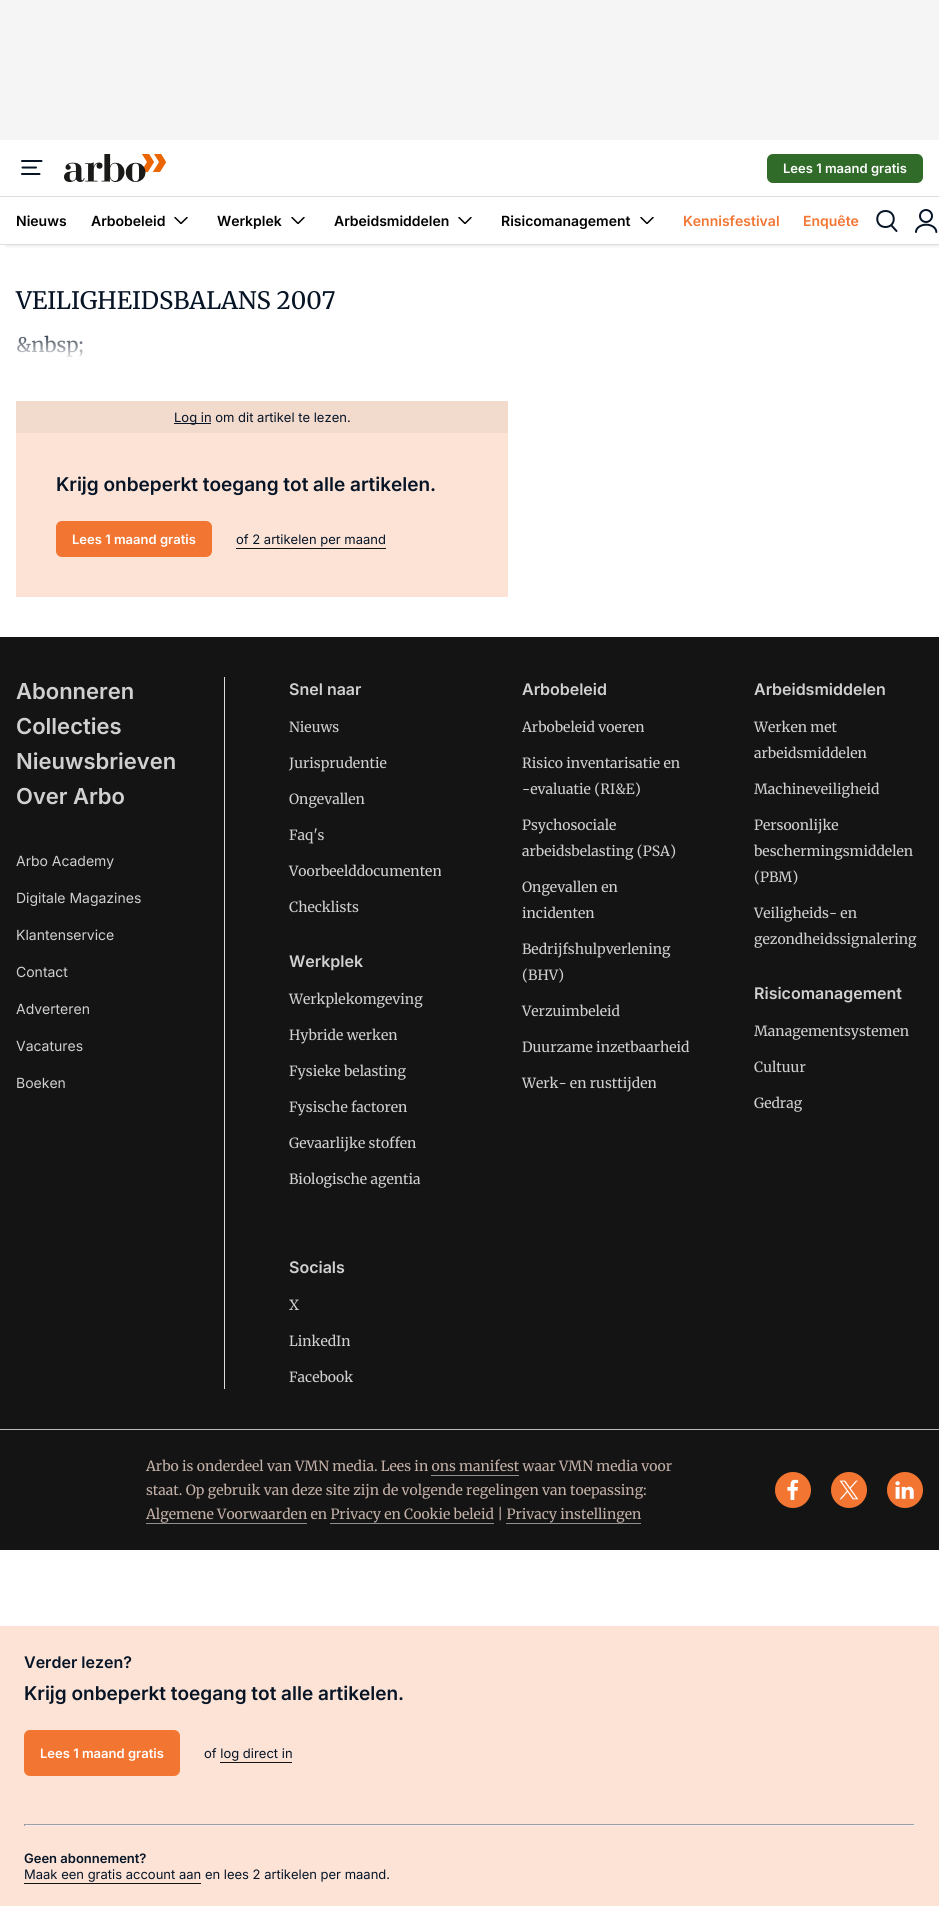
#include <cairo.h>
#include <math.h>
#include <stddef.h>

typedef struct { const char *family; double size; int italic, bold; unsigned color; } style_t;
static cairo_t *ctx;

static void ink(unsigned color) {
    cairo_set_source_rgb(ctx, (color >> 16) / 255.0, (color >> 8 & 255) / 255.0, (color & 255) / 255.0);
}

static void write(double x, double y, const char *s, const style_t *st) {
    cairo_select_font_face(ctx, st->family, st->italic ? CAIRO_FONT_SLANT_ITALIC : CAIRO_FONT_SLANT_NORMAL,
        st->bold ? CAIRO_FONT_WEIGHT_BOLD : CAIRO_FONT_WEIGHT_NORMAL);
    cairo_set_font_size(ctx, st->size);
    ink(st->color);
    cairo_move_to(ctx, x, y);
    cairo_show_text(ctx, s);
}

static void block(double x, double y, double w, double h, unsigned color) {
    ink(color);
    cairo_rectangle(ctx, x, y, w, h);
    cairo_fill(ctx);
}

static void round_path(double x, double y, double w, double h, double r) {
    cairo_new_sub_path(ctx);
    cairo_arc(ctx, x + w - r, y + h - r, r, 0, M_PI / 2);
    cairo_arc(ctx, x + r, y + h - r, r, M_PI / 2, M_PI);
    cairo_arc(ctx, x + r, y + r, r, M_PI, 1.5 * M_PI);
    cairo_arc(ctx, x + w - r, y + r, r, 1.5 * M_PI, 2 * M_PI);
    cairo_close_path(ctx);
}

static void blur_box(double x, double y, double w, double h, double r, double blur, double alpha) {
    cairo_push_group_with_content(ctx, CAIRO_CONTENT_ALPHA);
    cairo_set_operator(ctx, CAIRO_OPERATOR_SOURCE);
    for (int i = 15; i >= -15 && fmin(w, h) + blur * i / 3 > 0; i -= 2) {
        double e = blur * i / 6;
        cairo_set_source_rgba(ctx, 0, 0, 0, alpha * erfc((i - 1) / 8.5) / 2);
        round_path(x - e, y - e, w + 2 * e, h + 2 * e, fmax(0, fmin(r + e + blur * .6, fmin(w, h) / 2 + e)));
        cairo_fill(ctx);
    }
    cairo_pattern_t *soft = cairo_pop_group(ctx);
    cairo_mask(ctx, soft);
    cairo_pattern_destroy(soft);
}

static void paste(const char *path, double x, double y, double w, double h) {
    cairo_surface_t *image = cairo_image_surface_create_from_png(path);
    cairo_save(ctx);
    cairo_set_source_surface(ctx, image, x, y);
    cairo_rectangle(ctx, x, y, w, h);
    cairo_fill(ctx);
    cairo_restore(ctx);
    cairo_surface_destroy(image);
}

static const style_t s1 = {"Inter SemiBold", 13, 0, 0, 0xffffff};
static const style_t s2 = {"Inter SemiBold", 14, 0, 0, 0x000000};
static const style_t s3 = {"Inter SemiBold", 14, 0, 0, 0xf27531};
static const style_t s4 = {"Merriweather", 24, 0, 0, 0x061426};
static const style_t s5 = {"Merriweather", 20, 0, 0, 0x061426};
static const style_t s6 = {"Inter", 13, 0, 0, 0x061426};
static const style_t s7 = {"Inter SemiBold", 19, 0, 0, 0x061426};
static const style_t s8 = {"Inter SemiBold", 22, 0, 0, 0xd0d0d0};
static const style_t s9 = {"Inter", 14, 0, 0, 0xd0d0d0};
static const style_t s10 = {"Inter SemiBold", 16, 0, 0, 0xd0d0d0};
static const style_t s11 = {"Merriweather", 14, 0, 0, 0xd0d0d0};
static const style_t s12 = {"Merriweather", 14, 0, 0, 0xc2afa6};
static const style_t s13 = {"Inter SemiBold", 16, 0, 0, 0x061426};
static const style_t s14 = {"Inter SemiBold", 13, 0, 0, 0x061426};

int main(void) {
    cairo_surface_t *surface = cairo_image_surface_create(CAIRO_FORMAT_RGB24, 939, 1906);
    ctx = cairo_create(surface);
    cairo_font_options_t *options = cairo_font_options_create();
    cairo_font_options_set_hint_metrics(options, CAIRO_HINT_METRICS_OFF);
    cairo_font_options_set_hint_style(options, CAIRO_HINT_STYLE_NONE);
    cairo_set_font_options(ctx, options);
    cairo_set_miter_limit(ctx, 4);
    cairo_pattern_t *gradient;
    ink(0xffffff);
    cairo_paint(ctx);
    block(0, 0, 939, 140, 0xf5f5f5);
    cairo_save(ctx);
    cairo_rectangle(ctx, 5, 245, 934, 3);
    cairo_clip(ctx);
    ink(0x000000);
    blur_box(6, 145, 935, 101, 0, 2, 0.1);
    cairo_restore(ctx);
    block(0, 244, 939, 1, 0xdedede);
    cairo_new_path(ctx);
    cairo_move_to(ctx, 22, 161);
    cairo_line_to(ctx, 41.5, 161);
    cairo_move_to(ctx, 22.5, 167.5);
    cairo_line_to(ctx, 36, 167.5);
    cairo_move_to(ctx, 22, 174);
    cairo_line_to(ctx, 39.5, 174);
    ink(0x061426);
    cairo_set_line_cap(ctx, CAIRO_LINE_CAP_ROUND);
    cairo_set_line_join(ctx, CAIRO_LINE_JOIN_ROUND);
    cairo_stroke(ctx);
    paste("pic1.png", 64, 154, 102, 28);
    ink(0x306b29);
    round_path(767, 154, 156, 29, 6);
    cairo_fill(ctx);
    write(783, 173, "Lees 1 maand gratis", &s1);
    block(0, 196, 939, 1, 0xdedede);
    write(16, 226, "Nieuws", &s2);
    write(91, 226, "Arbobeleid", &s2);
    cairo_save(ctx);
    cairo_new_path(ctx);
    cairo_move_to(ctx, 174, 217);
    cairo_line_to(ctx, 188, 217);
    cairo_line_to(ctx, 188, 224);
    cairo_line_to(ctx, 174, 224);
    cairo_close_path(ctx);
    cairo_clip(ctx);
    cairo_new_path(ctx);
    cairo_move_to(ctx, 187, 217.5);
    cairo_line_to(ctx, 181, 223.5);
    cairo_line_to(ctx, 175, 217.5);
    cairo_set_line_width(ctx, 1.5);
    cairo_stroke(ctx);
    cairo_restore(ctx);
    write(217, 226, "Werkplek", &s2);
    cairo_save(ctx);
    cairo_new_path(ctx);
    cairo_move_to(ctx, 291, 217);
    cairo_line_to(ctx, 305, 217);
    cairo_line_to(ctx, 305, 224);
    cairo_line_to(ctx, 291, 224);
    cairo_close_path(ctx);
    cairo_clip(ctx);
    cairo_new_path(ctx);
    cairo_move_to(ctx, 304, 217.5);
    cairo_line_to(ctx, 298, 223.5);
    cairo_line_to(ctx, 292, 217.5);
    cairo_set_line_width(ctx, 1.5);
    cairo_stroke(ctx);
    cairo_restore(ctx);
    write(334, 226, "Arbeidsmiddelen", &s2);
    cairo_save(ctx);
    cairo_new_path(ctx);
    cairo_move_to(ctx, 458, 217);
    cairo_line_to(ctx, 472, 217);
    cairo_line_to(ctx, 472, 224);
    cairo_line_to(ctx, 458, 224);
    cairo_close_path(ctx);
    cairo_clip(ctx);
    cairo_new_path(ctx);
    cairo_move_to(ctx, 471, 217.5);
    cairo_line_to(ctx, 465, 223.5);
    cairo_line_to(ctx, 459, 217.5);
    cairo_set_line_width(ctx, 1.5);
    cairo_stroke(ctx);
    cairo_restore(ctx);
    write(501, 226, "Risicomanagement", &s2);
    cairo_save(ctx);
    cairo_new_path(ctx);
    cairo_move_to(ctx, 640, 217);
    cairo_line_to(ctx, 654, 217);
    cairo_line_to(ctx, 654, 224);
    cairo_line_to(ctx, 640, 224);
    cairo_close_path(ctx);
    cairo_clip(ctx);
    cairo_new_path(ctx);
    cairo_move_to(ctx, 653, 217.5);
    cairo_line_to(ctx, 647, 223.5);
    cairo_line_to(ctx, 641, 217.5);
    cairo_set_line_width(ctx, 1.5);
    cairo_stroke(ctx);
    cairo_restore(ctx);
    write(683, 226, "Kennisfestival", &s3);
    write(803, 226, "Enquête", &s3);
    cairo_new_path(ctx);
    cairo_move_to(ctx, 885.5, 227);
    cairo_curve_to(ctx, 896.5, 227, 896.5, 211, 885.5, 211);
    cairo_curve_to(ctx, 874.5, 211, 874.5, 227, 885.5, 227);
    cairo_move_to(ctx, 891.5, 225.5);
    cairo_line_to(ctx, 896.5, 231);
    ink(0x061426);
    cairo_stroke(ctx);
    paste("pic2.png", 915, 209, 23, 24);
    write(16, 309, "VEILIGHEIDSBALANS 2007", &s4);
    write(16, 352, "&nbsp;", &s5);
    gradient = cairo_pattern_create_linear(262, 329, 262, 361);
    cairo_pattern_add_color_stop_rgba(gradient, 0, 1, 1, 1, 0);
    cairo_pattern_add_color_stop_rgba(gradient, 1, 1, 1, 1, 1);
    cairo_set_source(ctx, gradient);
    cairo_pattern_destroy(gradient);
    cairo_rectangle(ctx, 17, 335, 66, 22);
    cairo_fill(ctx);
    block(16, 401, 492, 32, 0xf2dacd);
    block(174, 423, 37, 1, 0x061426);
    write(174, 422, "Log in om dit artikel te lezen.", &s6);
    block(16, 433, 492, 164, 0xfce3d6);
    write(56, 491, "Krijg onbeperkt toegang tot alle artikelen.", &s7);
    ink(0xf27531);
    round_path(56, 521, 156, 36, 6);
    cairo_fill(ctx);
    write(72, 544, "Lees 1 maand gratis", &s1);
    write(236, 544, "of 2 artikelen per maand", &s6);
    block(236, 548, 150, 1, 0x141414);
    block(0, 637, 939, 792, 0x141414);
    write(16, 699, "Abonneren", &s8);
    write(16, 734, "Collecties", &s8);
    write(16, 769, "Nieuwsbrieven", &s8);
    write(16, 804, "Over Arbo", &s8);
    write(16, 866, "Arbo Academy", &s9);
    write(16, 903, "Digitale Magazines", &s9);
    write(16, 940, "Klantenservice", &s9);
    write(16, 977, "Contact", &s9);
    write(16, 1014, "Adverteren", &s9);
    write(16, 1051, "Vacatures", &s9);
    write(16, 1088, "Boeken", &s9);
    block(224, 677, 1, 712, 0xdedede);
    write(289, 695, "Snel naar", &s10);
    write(289, 732, "Nieuws", &s11);
    write(289, 768, "Jurisprudentie", &s11);
    write(289, 804, "Ongevallen", &s11);
    write(289, 840, "Faq's", &s11);
    write(289, 876, "Voorbeelddocumenten", &s11);
    write(289, 912, "Checklists", &s11);
    write(289, 967, "Werkplek", &s10);
    write(289, 1004, "Werkplekomgeving", &s11);
    write(289, 1040, "Hybride werken", &s11);
    write(289, 1076, "Fysieke belasting", &s11);
    write(289, 1112, "Fysische factoren", &s11);
    write(289, 1148, "Gevaarlijke stoffen", &s11);
    write(289, 1184, "Biologische agentia", &s11);
    write(522, 695, "Arbobeleid", &s10);
    write(522, 732, "Arbobeleid voeren", &s11);
    write(522, 768, "Risico inventarisatie en", &s11);
    write(522, 794, "-evaluatie (RI&E)", &s11);
    write(522, 830, "Psychosociale", &s11);
    write(522, 856, "arbeidsbelasting (PSA)", &s11);
    write(522, 892, "Ongevallen en", &s11);
    write(522, 918, "incidenten", &s11);
    write(522, 954, "Bedrijfshulpverlening", &s11);
    write(522, 980, "(BHV)", &s11);
    write(522, 1016, "Verzuimbeleid", &s11);
    write(522, 1052, "Duurzame inzetbaarheid", &s11);
    write(522, 1088, "Werk- en rusttijden", &s11);
    write(754, 695, "Arbeidsmiddelen", &s10);
    write(754, 732, "Werken met", &s11);
    write(754, 758, "arbeidsmiddelen", &s11);
    write(754, 794, "Machineveiligheid", &s11);
    write(754, 830, "Persoonlijke", &s11);
    write(754, 856, "beschermingsmiddelen", &s11);
    write(754, 882, "(PBM)", &s11);
    write(754, 918, "Veiligheids- en", &s11);
    write(754, 944, "gezondheidssignalering", &s11);
    write(754, 999, "Risicomanagement", &s10);
    write(754, 1036, "Managementsystemen", &s11);
    write(754, 1072, "Cultuur", &s11);
    write(754, 1108, "Gedrag", &s11);
    write(289, 1273, "Socials", &s10);
    write(289, 1310, "X", &s11);
    write(289, 1346, "LinkedIn", &s11);
    write(289, 1382, "Facebook", &s11);
    block(0, 1430, 939, 120, 0x141414);
    block(0, 1429, 939, 1, 0xbbbbbb);
    write(146, 1471, "Arbo is onderdeel van VMN media. Lees in ons manifest waar VMN media voor", &s12);
    block(431, 1475, 88, 1, 0x919191);
    write(146, 1495, "staat. Op gebruik van deze site zijn de volgende regelingen van toepassing:", &s12);
    write(146, 1519, "Algemene Voorwaarden en Privacy en Cookie beleid | Privacy instellingen", &s12);
    block(146, 1523, 161, 1, 0x919191);
    block(330, 1523, 164, 1, 0x919191);
    block(506, 1523, 135, 1, 0x919191);
    ink(0xf27531);
    cairo_new_path(ctx);
    cairo_arc(ctx, 793, 1490, 18, 0, 2 * M_PI);
    cairo_fill(ctx);
    paste("pic3.png", 787, 1479, 12, 21);
    cairo_arc(ctx, 849, 1490, 18, 0, 2 * M_PI);
    cairo_fill(ctx);
    paste("pic4.png", 839, 1480, 20, 20);
    cairo_arc(ctx, 905, 1490, 18, 0, 2 * M_PI);
    cairo_fill(ctx);
    paste("pic5.png", 895, 1481, 19, 18);
    block(0, 1626, 939, 280, 0xfce3d6);
    write(24, 1668, "Verder lezen?", &s13);
    write(24, 1700, "Krijg onbeperkt toegang tot alle artikelen.", &s7);
    ink(0xf27531);
    round_path(24, 1730, 156, 46, 6);
    cairo_fill(ctx);
    write(40, 1758, "Lees 1 maand gratis", &s1);
    write(204, 1758, "of log direct in", &s6);
    block(220, 1762, 72, 1, 0x141414);
    block(24, 1824, 891, 1, 0x9f9f9f);
    block(914, 1824, 1, 2, 0xeeeeee);
    block(24, 1825, 891, 1, 0xeeeeee);
    block(24, 1824, 1, 2, 0x9f9f9f);
    write(24, 1863, "Geen abonnement?", &s14);
    write(24, 1879, "Maak een gratis account aan en lees 2 artikelen per maand.", &s6);
    block(24, 1883, 177, 1, 0x141414);
    cairo_surface_write_to_png(surface, "screenshot.png");
    cairo_font_options_destroy(options);
    cairo_destroy(ctx);
    cairo_surface_destroy(surface);
    return 0;
}
